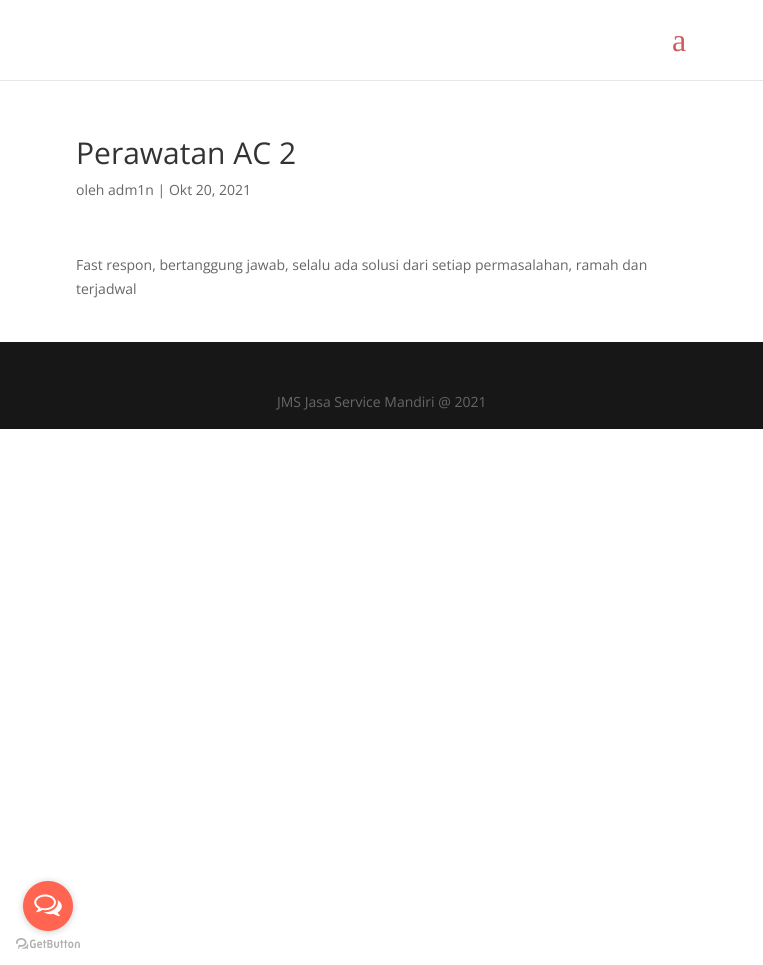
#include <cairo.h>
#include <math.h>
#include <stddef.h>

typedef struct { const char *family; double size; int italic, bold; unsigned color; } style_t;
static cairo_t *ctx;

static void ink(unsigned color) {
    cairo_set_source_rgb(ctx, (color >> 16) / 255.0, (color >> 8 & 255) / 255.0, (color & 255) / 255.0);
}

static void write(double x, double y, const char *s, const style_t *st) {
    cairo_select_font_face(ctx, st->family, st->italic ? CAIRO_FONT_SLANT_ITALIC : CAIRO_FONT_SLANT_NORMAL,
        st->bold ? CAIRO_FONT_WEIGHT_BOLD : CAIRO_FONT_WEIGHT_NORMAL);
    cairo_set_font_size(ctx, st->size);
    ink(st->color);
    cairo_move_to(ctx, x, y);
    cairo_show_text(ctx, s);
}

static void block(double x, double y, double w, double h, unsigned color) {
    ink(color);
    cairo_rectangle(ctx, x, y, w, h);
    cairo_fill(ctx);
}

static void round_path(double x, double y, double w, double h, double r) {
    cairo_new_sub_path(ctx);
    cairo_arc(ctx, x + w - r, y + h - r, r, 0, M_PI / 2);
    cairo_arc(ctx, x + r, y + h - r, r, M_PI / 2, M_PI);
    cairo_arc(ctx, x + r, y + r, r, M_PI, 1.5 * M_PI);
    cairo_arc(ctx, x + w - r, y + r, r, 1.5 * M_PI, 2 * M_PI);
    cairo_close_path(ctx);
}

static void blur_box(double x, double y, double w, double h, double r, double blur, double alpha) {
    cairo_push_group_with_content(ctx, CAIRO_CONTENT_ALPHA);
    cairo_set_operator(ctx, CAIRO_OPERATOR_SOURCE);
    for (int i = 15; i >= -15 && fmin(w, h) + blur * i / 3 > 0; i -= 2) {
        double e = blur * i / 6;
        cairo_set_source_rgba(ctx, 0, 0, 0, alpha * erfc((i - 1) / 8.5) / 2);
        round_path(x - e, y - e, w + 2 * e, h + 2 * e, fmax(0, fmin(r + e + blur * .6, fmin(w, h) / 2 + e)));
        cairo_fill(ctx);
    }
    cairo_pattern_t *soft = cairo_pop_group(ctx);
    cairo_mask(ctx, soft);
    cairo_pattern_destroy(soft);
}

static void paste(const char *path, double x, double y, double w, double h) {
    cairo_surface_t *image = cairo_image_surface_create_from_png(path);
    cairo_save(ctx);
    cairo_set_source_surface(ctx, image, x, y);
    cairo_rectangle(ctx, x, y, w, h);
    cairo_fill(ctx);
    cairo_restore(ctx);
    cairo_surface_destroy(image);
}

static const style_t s1 = {"Liberation Serif", 32, 0, 0, 0xcd5c5c};
static const style_t s2 = {"Open Sans", 30, 0, 0, 0x333333};
static const style_t s3 = {"Open Sans", 14, 0, 0, 0x666666};

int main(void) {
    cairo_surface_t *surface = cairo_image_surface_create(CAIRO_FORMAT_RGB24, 763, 965);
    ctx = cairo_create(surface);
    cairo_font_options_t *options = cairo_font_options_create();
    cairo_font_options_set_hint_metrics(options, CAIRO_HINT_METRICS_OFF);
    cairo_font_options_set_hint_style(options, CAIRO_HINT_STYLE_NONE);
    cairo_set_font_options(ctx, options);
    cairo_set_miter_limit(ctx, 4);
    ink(0xffffff);
    cairo_paint(ctx);
    block(0, 80, 763, 1, 0xe6e6e6);
    write(672, 51, "a", &s1);
    write(76, 164, "Perawatan AC 2", &s2);
    write(76, 195, "oleh adm1n | Okt 20, 2021", &s3);
    write(76, 270, "Fast respon, bertanggung jawab, selalu ada solusi dari setiap permasalahan, ramah dan", &s3);
    write(76, 294, "terjadwal", &s3);
    block(0, 342, 763, 87, 0x171717);
    write(277, 407, "JMS Jasa Service Mandiri @ 2021", &s3);
    paste("pic2.png", 16, 938, 64, 11);
    ink(0x888888);
    blur_box(23, 882, 50, 50, 25, 3.5, 0.4);
    ink(0xff6550);
    cairo_arc(ctx, 48, 906, 25, 0, 2 * M_PI);
    cairo_fill(ctx);
    paste("pic1.png", 34, 894, 28, 23);
    cairo_surface_write_to_png(surface, "screenshot.png");
    cairo_font_options_destroy(options);
    cairo_destroy(ctx);
    cairo_surface_destroy(surface);
    return 0;
}
